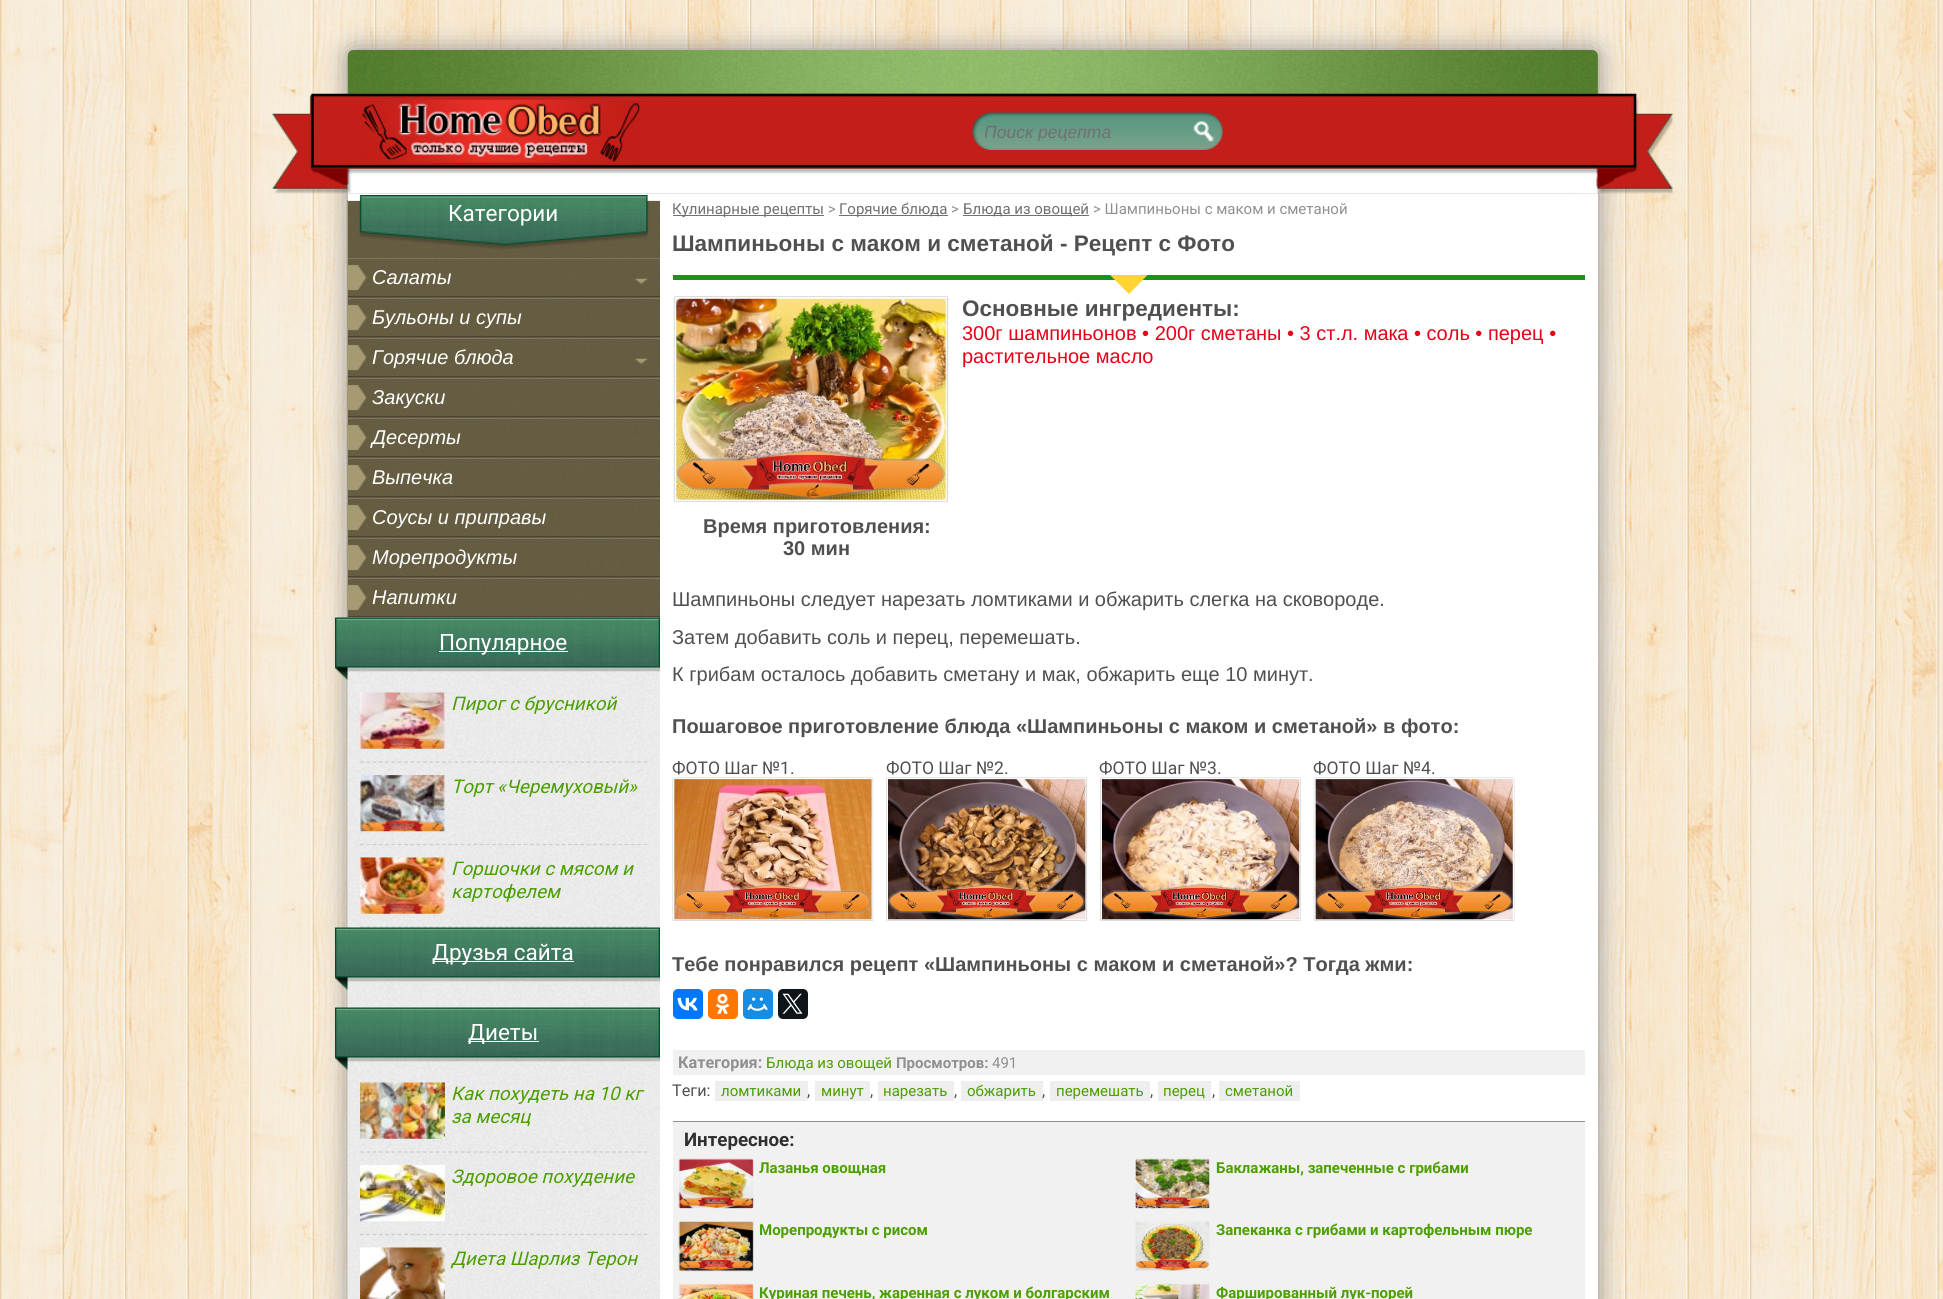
#include <cairo.h>
#include <math.h>
#include <stddef.h>

typedef struct { const char *family; double size; int italic, bold; unsigned color; } style_t;
static cairo_t *ctx;

static void ink(unsigned color) {
    cairo_set_source_rgb(ctx, (color >> 16) / 255.0, (color >> 8 & 255) / 255.0, (color & 255) / 255.0);
}

static void write(double x, double y, const char *s, const style_t *st) {
    cairo_select_font_face(ctx, st->family, st->italic ? CAIRO_FONT_SLANT_ITALIC : CAIRO_FONT_SLANT_NORMAL,
        st->bold ? CAIRO_FONT_WEIGHT_BOLD : CAIRO_FONT_WEIGHT_NORMAL);
    cairo_set_font_size(ctx, st->size);
    ink(st->color);
    cairo_move_to(ctx, x, y);
    cairo_show_text(ctx, s);
}

static void block(double x, double y, double w, double h, unsigned color) {
    ink(color);
    cairo_rectangle(ctx, x, y, w, h);
    cairo_fill(ctx);
}

static void round_path(double x, double y, double w, double h, double r) {
    cairo_new_sub_path(ctx);
    cairo_arc(ctx, x + w - r, y + h - r, r, 0, M_PI / 2);
    cairo_arc(ctx, x + r, y + h - r, r, M_PI / 2, M_PI);
    cairo_arc(ctx, x + r, y + r, r, M_PI, 1.5 * M_PI);
    cairo_arc(ctx, x + w - r, y + r, r, 1.5 * M_PI, 2 * M_PI);
    cairo_close_path(ctx);
}

static void blur_box(double x, double y, double w, double h, double r, double blur, double alpha) {
    cairo_push_group_with_content(ctx, CAIRO_CONTENT_ALPHA);
    cairo_set_operator(ctx, CAIRO_OPERATOR_SOURCE);
    for (int i = 15; i >= -15 && fmin(w, h) + blur * i / 3 > 0; i -= 2) {
        double e = blur * i / 6;
        cairo_set_source_rgba(ctx, 0, 0, 0, alpha * erfc((i - 1) / 8.5) / 2);
        round_path(x - e, y - e, w + 2 * e, h + 2 * e, fmax(0, fmin(r + e + blur * .6, fmin(w, h) / 2 + e)));
        cairo_fill(ctx);
    }
    cairo_pattern_t *soft = cairo_pop_group(ctx);
    cairo_mask(ctx, soft);
    cairo_pattern_destroy(soft);
}

static void paste(const char *path, double x, double y, double w, double h) {
    cairo_surface_t *image = cairo_image_surface_create_from_png(path);
    cairo_save(ctx);
    cairo_set_source_surface(ctx, image, x, y);
    cairo_rectangle(ctx, x, y, w, h);
    cairo_fill(ctx);
    cairo_restore(ctx);
    cairo_surface_destroy(image);
}

static const style_t s1 = {"Liberation Sans", 17.5, 1, 0, 0x707070};
static const style_t s2 = {"Roboto", 22.5, 0, 0, 0xffffff};
static const style_t s3 = {"Liberation Sans", 20, 1, 0, 0xffffff};
static const style_t s4 = {"Roboto", 18.75, 1, 0, 0x4c9f00};
static const style_t s5 = {"Roboto", 15, 0, 0, 0x707070};
static const style_t s6 = {"Roboto", 15, 0, 0, 0x909090};
static const style_t s7 = {"Liberation Sans", 22.5, 0, 1, 0x505050};
static const style_t s8 = {"Liberation Sans", 20, 0, 0, 0xe80017};
static const style_t s9 = {"Liberation Sans", 20, 0, 1, 0x505050};
static const style_t s10 = {"Liberation Sans", 20, 0, 0, 0x505050};
static const style_t s11 = {"Roboto", 17.5, 0, 0, 0x505050};
static const style_t s12 = {"Roboto", 16.25, 0, 1, 0x909090};
static const style_t s13 = {"Roboto", 15, 0, 0, 0x4c9f00};
static const style_t s14 = {"Roboto", 15, 0, 1, 0x909090};
static const style_t s15 = {"Roboto", 16.25, 0, 0, 0x505050};
static const style_t s16 = {"Roboto", 18.75, 0, 1, 0x303030};
static const style_t s17 = {"Roboto", 15, 0, 1, 0x4c9f00};

int main(void) {
    cairo_surface_t *surface = cairo_image_surface_create(CAIRO_FORMAT_RGB24, 1943, 1299);
    ctx = cairo_create(surface);
    cairo_font_options_t *options = cairo_font_options_create();
    cairo_font_options_set_hint_metrics(options, CAIRO_HINT_METRICS_OFF);
    cairo_font_options_set_hint_style(options, CAIRO_HINT_STYLE_NONE);
    cairo_set_font_options(ctx, options);
    cairo_set_miter_limit(ctx, 4);
    ink(0xffffff);
    cairo_paint(ctx);
    paste("pic1.png", 0, 0, 1943, 1299);
    ink(0x909090);
    blur_box(348, 50, 1250, 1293, 6, 12.5, 1);
    ink(0x628b3c);
    cairo_new_path(ctx);
    cairo_move_to(ctx, 354, 50);
    cairo_line_to(ctx, 1592, 50);
    cairo_curve_to(ctx, 1595.5, 50, 1598, 52.5, 1598, 56);
    cairo_line_to(ctx, 1598, 94);
    cairo_line_to(ctx, 348, 94);
    cairo_line_to(ctx, 348, 56);
    cairo_curve_to(ctx, 348, 52.5, 350.5, 50, 354, 50);
    cairo_close_path(ctx);
    cairo_fill(ctx);
    paste("pic2.png", 347, 50, 1251, 44);
    paste("pic3.png", 272, 93, 1401, 101);
    paste("pic4.png", 362, 100, 278, 63);
    paste("pic5.png", 972, 112, 251, 38);
    cairo_save(ctx);
    cairo_rectangle(ctx, 985, 121, 200, 20);
    cairo_clip(ctx);
    write(984, 138, "Поиск рецепта", &s1);
    cairo_restore(ctx);
    paste("pic6.png", 1193, 121, 21, 21);
    block(348, 194, 1250, 1105, 0xffffff);
    paste("pic7.png", 347, 200, 313, 1099);
    paste("pic8.png", 347, 200, 313, 418);
    block(348, 200, 312, 1, 0xeeeeee);
    paste("pic9.png", 359, 195, 290, 55);
    write(448, 221, "Категории", &s2);
    block(348, 258, 312, 1, 0x7d755f);
    block(348, 296, 312, 1, 0x4b4430);
    paste("pic10.png", 347, 264, 301, 27);
    write(372, 284, "Салаты", &s3);
    block(348, 298, 312, 1, 0x7d755f);
    block(348, 336, 312, 1, 0x4b4430);
    paste("pic11.png", 347, 304, 20, 27);
    write(372, 324, "Бульоны и супы", &s3);
    block(348, 338, 312, 1, 0x7d755f);
    block(348, 376, 312, 1, 0x4b4430);
    paste("pic12.png", 347, 344, 301, 27);
    write(372, 364, "Горячие блюда", &s3);
    block(348, 378, 312, 1, 0x7d755f);
    block(348, 416, 312, 1, 0x4b4430);
    paste("pic13.png", 347, 384, 20, 27);
    write(372, 404, "Закуски", &s3);
    block(348, 418, 312, 1, 0x7d755f);
    block(348, 456, 312, 1, 0x4b4430);
    paste("pic14.png", 347, 424, 20, 27);
    write(372, 444, "Десерты", &s3);
    block(348, 458, 312, 1, 0x7d755f);
    block(348, 496, 312, 1, 0x4b4430);
    paste("pic15.png", 347, 464, 20, 27);
    write(372, 484, "Выпечка", &s3);
    block(348, 498, 312, 1, 0x7d755f);
    block(348, 536, 312, 1, 0x4b4430);
    paste("pic16.png", 347, 504, 20, 27);
    write(372, 524, "Соусы и приправы", &s3);
    block(348, 538, 312, 1, 0x7d755f);
    block(348, 576, 312, 1, 0x4b4430);
    paste("pic17.png", 347, 544, 20, 27);
    write(372, 564, "Морепродукты", &s3);
    block(348, 578, 312, 1, 0x7d755f);
    block(348, 616, 312, 1, 0x4b4430);
    paste("pic18.png", 347, 584, 20, 27);
    write(372, 604, "Напитки", &s3);
    paste("pic19.png", 335, 617, 325, 63);
    block(439, 651, 129, 1, 0xffffff);
    write(439, 650, "Популярное", &s2);
    cairo_new_path(ctx);
    cairo_move_to(ctx, 360, 762);
    cairo_line_to(ctx, 647.5, 762);
    ink(0xcccccc);
    cairo_set_line_width(ctx, 1.2);
    cairo_set_dash(ctx, (double[]){3.75, 2.55}, 2, 0);
    cairo_stroke(ctx);
    paste("pic20.png", 360, 692, 85, 57);
    write(451, 710, "Пирог с брусникой", &s4);
    cairo_new_path(ctx);
    cairo_move_to(ctx, 360, 844.5);
    cairo_line_to(ctx, 647.5, 844.5);
    ink(0xcccccc);
    cairo_stroke(ctx);
    paste("pic21.png", 360, 775, 85, 57);
    write(451, 793, "Торт «Черемуховый»", &s4);
    cairo_new_path(ctx);
    cairo_move_to(ctx, 360, 927);
    cairo_line_to(ctx, 647.5, 927);
    ink(0xcccccc);
    cairo_stroke(ctx);
    paste("pic22.png", 360, 857, 85, 57);
    write(451, 875, "Горшочки с мясом и", &s4);
    write(451, 898, "картофелем", &s4);
    paste("pic23.png", 335, 927, 325, 63);
    block(433, 961, 141, 1, 0xffffff);
    write(432, 960, "Друзья сайта", &s2);
    paste("pic24.png", 335, 1007, 325, 63);
    block(468, 1041, 71, 1, 0xffffff);
    write(468, 1040, "Диеты", &s2);
    cairo_new_path(ctx);
    cairo_move_to(ctx, 360, 1152);
    cairo_line_to(ctx, 647.5, 1152);
    ink(0xcccccc);
    cairo_stroke(ctx);
    paste("pic25.png", 360, 1082, 85, 57);
    write(451, 1100, "Как похудеть на 10 кг", &s4);
    write(451, 1123, "за месяц", &s4);
    cairo_new_path(ctx);
    cairo_move_to(ctx, 360, 1234.5);
    cairo_line_to(ctx, 647.5, 1234.5);
    ink(0xcccccc);
    cairo_stroke(ctx);
    paste("pic26.png", 360, 1165, 85, 57);
    write(451, 1183, "Здоровое похудение", &s4);
    paste("pic27.png", 360, 1247, 85, 52);
    write(451, 1265, "Диета Шарлиз Терон", &s4);
    block(673, 215, 151, 1, 0x707070);
    write(672, 214, "Кулинарные рецепты", &s5);
    write(828, 214, ">", &s6);
    block(839, 215, 109, 1, 0x707070);
    write(839, 214, "Горячие блюда", &s5);
    write(951, 214, ">", &s6);
    block(963, 215, 126, 1, 0x707070);
    write(963, 214, "Блюда из овощей", &s5);
    write(1093, 214, "> Шампиньоны с маком и сметаной", &s6);
    write(672, 251, "Шампиньоны с маком и сметаной - Рецепт с Фото", &s7);
    block(673, 275, 912, 5, 0x159619);
    ink(0xffd434);
    cairo_new_path(ctx);
    cairo_move_to(ctx, 1110, 275);
    cairo_line_to(ctx, 1147.5, 275);
    cairo_line_to(ctx, 1129, 294);
    cairo_close_path(ctx);
    cairo_fill(ctx);
    write(962, 316, "Основные ингредиенты:", &s7);
    write(962, 340, "300г шампиньонов • 200г сметаны • 3 ст.л. мака • соль • перец •", &s8);
    write(962, 363, "растительное масло", &s8);
    paste("pic28.png", 673, 296, 276, 207);
    write(703, 533, "Время приготовления:", &s9);
    write(783, 555, "30 мин", &s9);
    write(672, 606, "Шампиньоны следует нарезать ломтиками и обжарить слегка на сковороде.", &s10);
    write(672, 644, "Затем добавить соль и перец, перемешать.", &s10);
    write(672, 681, "К грибам осталось добавить сметану и мак, обжарить еще 10 минут.", &s10);
    write(672, 733, "Пошаговое приготовление блюда «Шампиньоны с маком и сметаной» в фото:", &s9);
    write(672, 774, "ФОТО Шаг №1.", &s11);
    paste("pic29.png", 672, 777, 202, 144);
    write(886, 774, "ФОТО Шаг №2.", &s11);
    paste("pic30.png", 886, 777, 202, 145);
    write(1099, 774, "ФОТО Шаг №3.", &s11);
    paste("pic31.png", 1100, 777, 201, 145);
    write(1313, 774, "ФОТО Шаг №4.", &s11);
    paste("pic32.png", 1313, 777, 202, 145);
    write(672, 971, "Тебе понравился рецепт «Шампиньоны с маком и сметаной»? Тогда жми:", &s9);
    ink(0x0077ff);
    round_path(673, 989, 30, 30, 5);
    cairo_fill(ctx);
    paste("pic33.png", 677, 997, 21, 14);
    ink(0xff7700);
    round_path(708, 989, 30, 30, 5);
    cairo_fill(ctx);
    paste("pic34.png", 715, 993, 15, 21);
    ink(0x168de2);
    round_path(743, 989, 30, 30, 5);
    cairo_fill(ctx);
    paste("pic35.png", 747, 997, 21, 14);
    ink(0x0f1419);
    round_path(778, 989, 30, 30, 5);
    cairo_fill(ctx);
    paste("pic36.png", 782, 993, 21, 21);
    block(673, 1050, 912, 25, 0xf1f1f1);
    write(678, 1068, "Категория:", &s12);
    write(766, 1068, "Блюда из овощей", &s13);
    write(896, 1068, "Просмотров:", &s14);
    write(992, 1068, "491", &s6);
    write(672, 1096, "Теги:", &s15);
    block(715, 1081, 93, 20, 0xeeeeee);
    write(721, 1096, "ломтиками", &s13);
    write(807, 1096, ",", &s15);
    block(815, 1081, 55, 20, 0xeeeeee);
    write(821, 1096, "минут", &s13);
    write(870, 1096, ",", &s15);
    block(878, 1081, 76, 20, 0xeeeeee);
    write(883, 1096, "нарезать", &s13);
    write(954, 1096, ",", &s15);
    block(961, 1081, 82, 20, 0xeeeeee);
    write(967, 1096, "обжарить", &s13);
    write(1042, 1096, ",", &s15);
    block(1050, 1081, 100, 20, 0xeeeeee);
    write(1056, 1096, "перемешать", &s13);
    write(1150, 1096, ",", &s15);
    block(1158, 1081, 53, 20, 0xeeeeee);
    write(1163, 1096, "перец", &s13);
    write(1212, 1096, ",", &s15);
    block(1219, 1081, 81, 20, 0xeeeeee);
    write(1225, 1096, "сметаной", &s13);
    block(673, 1122, 912, 177, 0xf1f1f1);
    block(673, 1121, 912, 1, 0x909090);
    write(684, 1146, "Интересное:", &s16);
    paste("pic37.png", 678, 1158, 76, 51);
    write(759, 1173, "Лазанья овощная", &s17);
    paste("pic38.png", 1135, 1158, 75, 51);
    write(1216, 1173, "Баклажаны, запеченные с грибами", &s17);
    paste("pic39.png", 678, 1221, 76, 51);
    write(759, 1235, "Морепродукты с рисом", &s17);
    paste("pic40.png", 1135, 1221, 75, 50);
    write(1216, 1235, "Запеканка с грибами и картофельным пюре", &s17);
    paste("pic41.png", 678, 1283, 76, 16);
    write(759, 1298, "Куриная печень, жаренная с луком и болгарским", &s17);
    paste("pic42.png", 1135, 1283, 75, 16);
    write(1216, 1298, "Фаршированный лук-порей", &s17);
    cairo_surface_write_to_png(surface, "screenshot.png");
    cairo_font_options_destroy(options);
    cairo_destroy(ctx);
    cairo_surface_destroy(surface);
    return 0;
}
